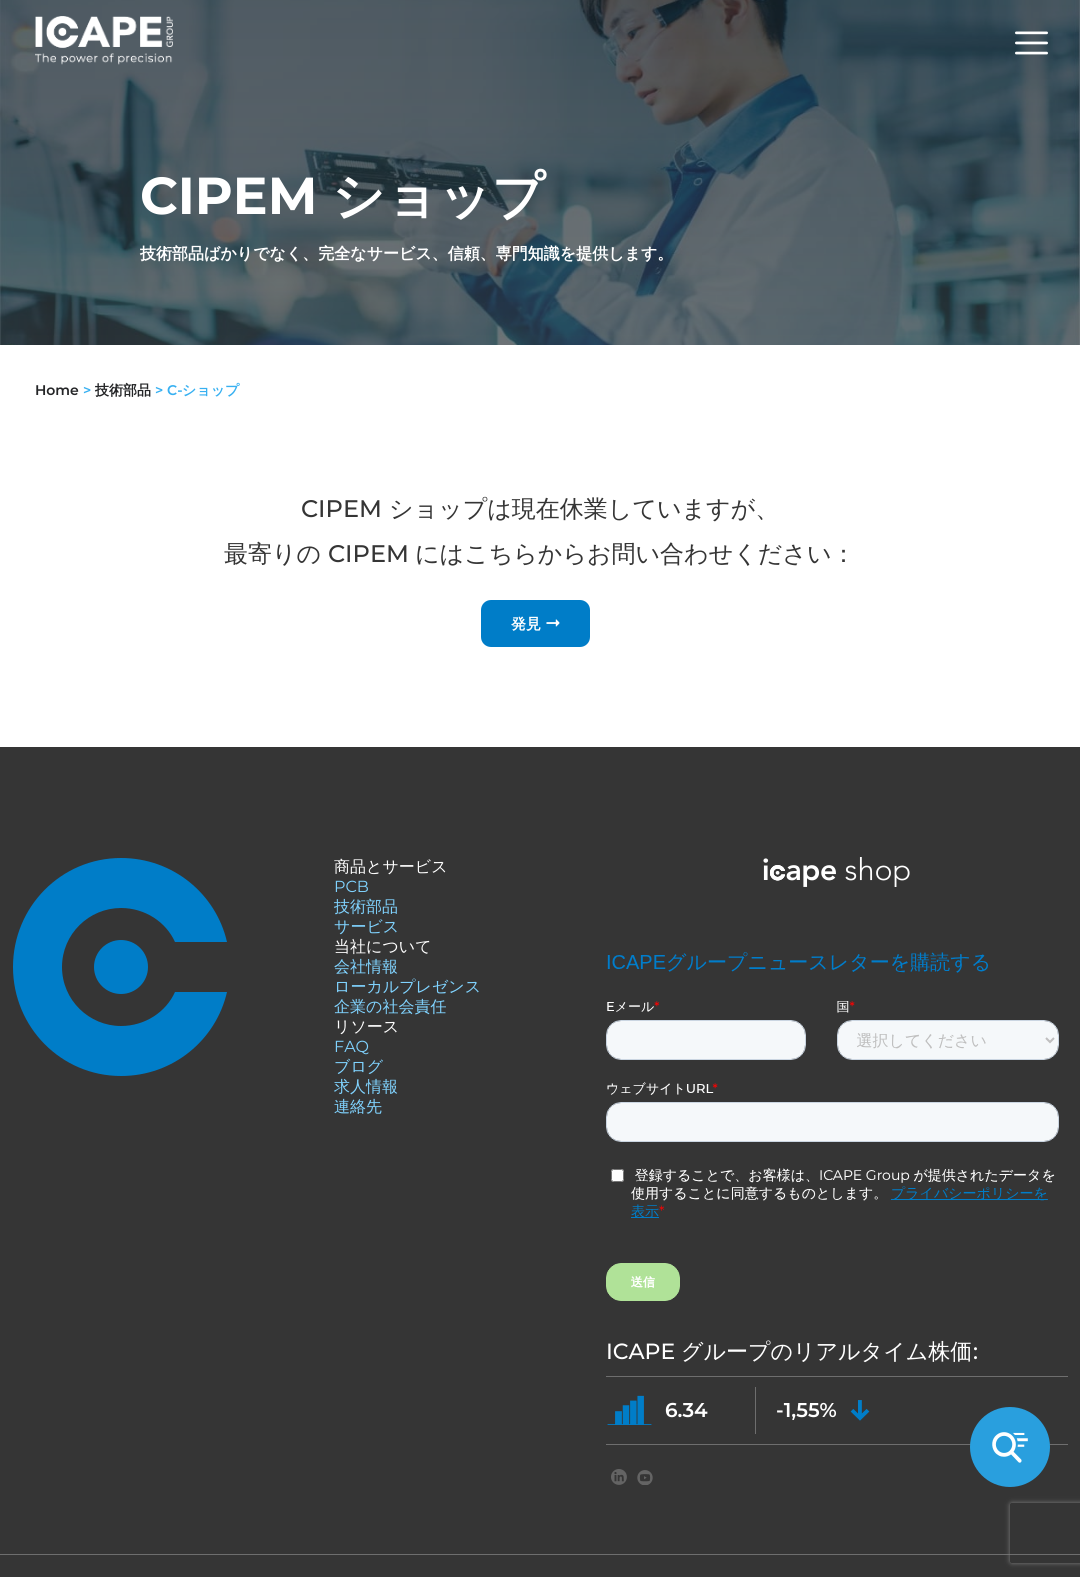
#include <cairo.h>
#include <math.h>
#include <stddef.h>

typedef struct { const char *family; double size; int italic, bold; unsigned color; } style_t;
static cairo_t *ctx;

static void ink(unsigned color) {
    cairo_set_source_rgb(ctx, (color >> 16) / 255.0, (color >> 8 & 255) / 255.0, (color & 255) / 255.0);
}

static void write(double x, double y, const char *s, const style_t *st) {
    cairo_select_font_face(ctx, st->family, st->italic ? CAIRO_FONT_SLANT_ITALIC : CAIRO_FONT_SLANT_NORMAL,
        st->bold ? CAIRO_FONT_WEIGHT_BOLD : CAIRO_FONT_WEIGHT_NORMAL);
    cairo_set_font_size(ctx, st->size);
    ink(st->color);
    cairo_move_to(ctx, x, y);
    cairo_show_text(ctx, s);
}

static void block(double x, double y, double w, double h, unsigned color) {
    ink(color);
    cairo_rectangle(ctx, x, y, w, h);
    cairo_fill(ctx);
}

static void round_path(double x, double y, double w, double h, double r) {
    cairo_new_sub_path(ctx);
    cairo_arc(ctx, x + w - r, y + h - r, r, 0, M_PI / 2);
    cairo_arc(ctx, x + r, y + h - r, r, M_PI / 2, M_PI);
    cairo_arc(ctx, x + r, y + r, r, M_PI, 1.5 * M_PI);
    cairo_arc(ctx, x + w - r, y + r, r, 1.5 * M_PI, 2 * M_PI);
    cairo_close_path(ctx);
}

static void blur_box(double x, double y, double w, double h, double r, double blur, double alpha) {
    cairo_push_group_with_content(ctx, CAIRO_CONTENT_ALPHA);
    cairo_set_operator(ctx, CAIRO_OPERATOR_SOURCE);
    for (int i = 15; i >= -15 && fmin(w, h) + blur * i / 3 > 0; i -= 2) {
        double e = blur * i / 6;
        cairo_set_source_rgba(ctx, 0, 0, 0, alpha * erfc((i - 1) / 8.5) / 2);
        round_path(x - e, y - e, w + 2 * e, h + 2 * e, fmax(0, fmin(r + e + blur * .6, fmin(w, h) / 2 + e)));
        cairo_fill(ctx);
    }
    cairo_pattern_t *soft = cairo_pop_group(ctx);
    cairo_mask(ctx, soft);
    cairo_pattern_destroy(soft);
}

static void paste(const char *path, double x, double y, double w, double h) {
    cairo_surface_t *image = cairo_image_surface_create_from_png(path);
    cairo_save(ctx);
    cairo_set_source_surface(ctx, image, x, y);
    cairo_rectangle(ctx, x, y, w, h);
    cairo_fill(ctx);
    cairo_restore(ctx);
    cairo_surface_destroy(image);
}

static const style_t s1 = {"Montserrat", 52, 0, 1, 0xffffff};
static const style_t s2 = {"WenQuanYi Zen Hei", 52, 0, 1, 0xffffff};
static const style_t s3 = {"WenQuanYi Zen Hei", 16, 0, 1, 0xffffff};
static const style_t s4 = {"Montserrat SemiBold", 14, 0, 0, 0x242527};
static const style_t s5 = {"Montserrat SemiBold", 14, 0, 0, 0x37b0f1};
static const style_t s6 = {"WenQuanYi Zen Hei", 14, 0, 1, 0x242527};
static const style_t s7 = {"WenQuanYi Zen Hei", 14, 0, 1, 0x37b0f1};
static const style_t s8 = {"Montserrat Medium", 24, 0, 0, 0x353535};
static const style_t s9 = {"WenQuanYi Zen Hei Medium", 24, 0, 0, 0x353535};
static const style_t s10 = {"WenQuanYi Zen Hei", 15, 0, 1, 0xffffff};
static const style_t s11 = {"WenQuanYi Zen Hei Medium", 16, 0, 0, 0xffffff};
static const style_t s12 = {"Montserrat", 16, 0, 0, 0x80d3ff};
static const style_t s13 = {"WenQuanYi Zen Hei Medium", 16, 0, 0, 0x80d3ff};
static const style_t s14 = {"Montserrat Medium", 22, 0, 0, 0xffffff};
static const style_t s15 = {"WenQuanYi Zen Hei Medium", 22, 0, 0, 0xffffff};
static const style_t s16 = {"Montserrat SemiBold", 20, 0, 0, 0xffffff};

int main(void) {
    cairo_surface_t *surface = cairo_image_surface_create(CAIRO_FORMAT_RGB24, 1080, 1577);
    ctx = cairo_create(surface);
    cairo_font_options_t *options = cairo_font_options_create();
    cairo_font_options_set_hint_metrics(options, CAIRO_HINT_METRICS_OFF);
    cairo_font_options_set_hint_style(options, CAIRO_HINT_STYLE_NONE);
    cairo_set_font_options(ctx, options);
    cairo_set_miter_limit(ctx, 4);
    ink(0xffffff);
    cairo_paint(ctx);
    paste("pic3.png", 0, 0, 1080, 345);
    paste("pic1.png", 35, 16, 138, 49);
    paste("pic2.png", 1015, 31, 33, 24);
    write(140, 214, "CIPEM", &s1);
    write(332, 214, "ショップ", &s2);
    write(140, 259, "技術部品ばかりでなく、完全なサービス、信頼、専門知識を提供します。", &s3);
    write(35, 395, "Home", &s4);
    write(83, 395, ">", &s5);
    write(95, 395, "技術部品", &s6);
    write(155, 395, "> C-", &s5);
    write(182, 395, "ショップ", &s7);
    write(301, 517, "CIPEM", &s8);
    write(389, 517, "ショップは現在休業していますが、", &s9);
    write(224, 562, "最寄りの", &s9);
    write(328, 562, "CIPEM", &s8);
    write(415, 562, "にはこちらからお問い合わせください：", &s9);
    ink(0x007dc8);
    round_path(481, 600, 109, 47, 10);
    cairo_fill(ctx);
    write(511, 629, "発見", &s10);
    paste("pic4.png", 546, 619, 14, 8);
    block(0, 747, 1080, 807, 0x353535);
    ink(0x007dc8);
    cairo_new_path(ctx);
    cairo_move_to(ctx, 121, 1026);
    cairo_curve_to(ctx, 89, 1026, 62, 1000, 62, 967);
    cairo_curve_to(ctx, 62, 934, 89, 908, 121, 908);
    cairo_curve_to(ctx, 145, 908, 166, 922, 175, 942);
    cairo_line_to(ctx, 227, 942);
    cairo_curve_to(ctx, 216, 894, 173, 858, 121, 858);
    cairo_curve_to(ctx, 61, 858, 13, 907, 13, 967);
    cairo_curve_to(ctx, 13, 1027, 61, 1076, 121, 1076);
    cairo_curve_to(ctx, 173, 1076, 216, 1040, 227, 992);
    cairo_line_to(ctx, 175, 992);
    cairo_curve_to(ctx, 166, 1012, 145, 1026, 121, 1026);
    cairo_close_path(ctx);
    cairo_fill(ctx);
    cairo_arc(ctx, 121, 967, 27, 0, 2 * M_PI);
    cairo_fill(ctx);
    write(334, 872, "商品とサービス", &s11);
    write(334, 892, "PCB", &s12);
    write(334, 912, "技術部品", &s13);
    write(334, 932, "サービス", &s13);
    write(334, 952, "当社について", &s11);
    write(334, 972, "会社情報", &s13);
    write(334, 992, "ローカルプレゼンス", &s13);
    write(334, 1012, "企業の社会責任", &s13);
    write(334, 1032, "リソース", &s11);
    write(334, 1052, "FAQ", &s12);
    write(334, 1072, "ブログ", &s13);
    write(334, 1092, "求人情報", &s13);
    write(334, 1112, "連絡先", &s13);
    paste("pic5.png", 763, 857, 147, 30);
    paste("pic6.png", 606, 952, 453, 349);
    write(606, 1359, "ICAPE", &s14);
    write(681, 1359, "グループのリアルタイム株価", &s15);
    write(973, 1359, ":", &s14);
    block(606, 1376, 462, 1, 0x6e6e6e);
    block(606, 1444, 462, 1, 0x6e6e6e);
    block(755, 1387, 1, 47, 0x6e6e6e);
    paste("pic7.png", 607, 1395, 45, 30);
    write(665, 1417, "6.34", &s16);
    write(776, 1417, "-1,55%", &s16);
    paste("pic8.png", 850, 1400, 20, 21);
    paste("pic9.png", 611, 1469, 16, 16);
    paste("pic10.png", 637, 1470, 16, 15);
    block(0, 1555, 1080, 22, 0x353535);
    block(0, 1554, 1080, 1, 0x6e6e6e);
    ink(0x299fde);
    cairo_arc(ctx, 1010, 1447, 40, 0, 2 * M_PI);
    cairo_fill(ctx);
    paste("pic11.png", 992, 1432, 36, 31);
    cairo_save(ctx);
    cairo_set_fill_rule(ctx, CAIRO_FILL_RULE_EVEN_ODD);
    cairo_new_path(ctx);
    cairo_move_to(ctx, 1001, 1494);
    cairo_line_to(ctx, 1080, 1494);
    cairo_line_to(ctx, 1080, 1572);
    cairo_line_to(ctx, 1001, 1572);
    cairo_close_path(ctx);
    cairo_move_to(ctx, 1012, 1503);
    cairo_line_to(ctx, 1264, 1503);
    cairo_curve_to(ctx, 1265, 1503, 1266, 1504, 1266, 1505);
    cairo_line_to(ctx, 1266, 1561);
    cairo_curve_to(ctx, 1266, 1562, 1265, 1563, 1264, 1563);
    cairo_line_to(ctx, 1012, 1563);
    cairo_curve_to(ctx, 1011, 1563, 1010, 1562, 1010, 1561);
    cairo_line_to(ctx, 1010, 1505);
    cairo_curve_to(ctx, 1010, 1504, 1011, 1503, 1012, 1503);
    cairo_close_path(ctx);
    cairo_clip(ctx);
    ink(0x808080);
    blur_box(1010, 1503, 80, 60, 2, 2.5, 1);
    cairo_restore(ctx);
    cairo_surface_write_to_png(surface, "screenshot.png");
    cairo_font_options_destroy(options);
    cairo_destroy(ctx);
    cairo_surface_destroy(surface);
    return 0;
}
